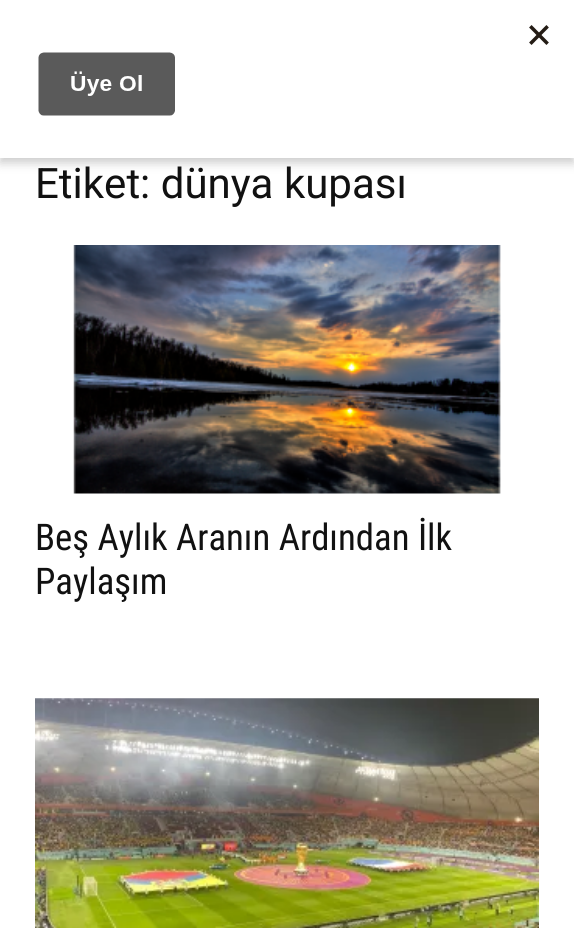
#include <cairo.h>
#include <math.h>
#include <stddef.h>

typedef struct { const char *family; double size; int italic, bold; unsigned color; } style_t;
static cairo_t *ctx;

static void ink(unsigned color) {
    cairo_set_source_rgb(ctx, (color >> 16) / 255.0, (color >> 8 & 255) / 255.0, (color & 255) / 255.0);
}

static void write(double x, double y, const char *s, const style_t *st) {
    cairo_select_font_face(ctx, st->family, st->italic ? CAIRO_FONT_SLANT_ITALIC : CAIRO_FONT_SLANT_NORMAL,
        st->bold ? CAIRO_FONT_WEIGHT_BOLD : CAIRO_FONT_WEIGHT_NORMAL);
    cairo_set_font_size(ctx, st->size);
    ink(st->color);
    cairo_move_to(ctx, x, y);
    cairo_show_text(ctx, s);
}

static void block(double x, double y, double w, double h, unsigned color) {
    ink(color);
    cairo_rectangle(ctx, x, y, w, h);
    cairo_fill(ctx);
}

static void round_path(double x, double y, double w, double h, double r) {
    cairo_new_sub_path(ctx);
    cairo_arc(ctx, x + w - r, y + h - r, r, 0, M_PI / 2);
    cairo_arc(ctx, x + r, y + h - r, r, M_PI / 2, M_PI);
    cairo_arc(ctx, x + r, y + r, r, M_PI, 1.5 * M_PI);
    cairo_arc(ctx, x + w - r, y + r, r, 1.5 * M_PI, 2 * M_PI);
    cairo_close_path(ctx);
}

static void blur_box(double x, double y, double w, double h, double r, double blur, double alpha) {
    cairo_push_group_with_content(ctx, CAIRO_CONTENT_ALPHA);
    cairo_set_operator(ctx, CAIRO_OPERATOR_SOURCE);
    for (int i = 15; i >= -15 && fmin(w, h) + blur * i / 3 > 0; i -= 2) {
        double e = blur * i / 6;
        cairo_set_source_rgba(ctx, 0, 0, 0, alpha * erfc((i - 1) / 8.5) / 2);
        round_path(x - e, y - e, w + 2 * e, h + 2 * e, fmax(0, fmin(r + e + blur * .6, fmin(w, h) / 2 + e)));
        cairo_fill(ctx);
    }
    cairo_pattern_t *soft = cairo_pop_group(ctx);
    cairo_mask(ctx, soft);
    cairo_pattern_destroy(soft);
}

static void paste(const char *path, double x, double y, double w, double h) {
    cairo_surface_t *image = cairo_image_surface_create_from_png(path);
    cairo_save(ctx);
    cairo_set_source_surface(ctx, image, x, y);
    cairo_rectangle(ctx, x, y, w, h);
    cairo_fill(ctx);
    cairo_restore(ctx);
    cairo_surface_destroy(image);
}

static const style_t s1 = {"Roboto", 42, 0, 0, 0x111111};
static const style_t s2 = {"Roboto Condensed", 36.75, 0, 0, 0x111111};

int main(void) {
    cairo_surface_t *surface = cairo_image_surface_create(CAIRO_FORMAT_RGB24, 574, 928);
    ctx = cairo_create(surface);
    cairo_font_options_t *options = cairo_font_options_create();
    cairo_font_options_set_hint_metrics(options, CAIRO_HINT_METRICS_OFF);
    cairo_font_options_set_hint_style(options, CAIRO_HINT_STYLE_NONE);
    cairo_set_font_options(ctx, options);
    cairo_set_miter_limit(ctx, 4);
    ink(0xffffff);
    cairo_paint(ctx);
    ink(0x000000);
    blur_box(0, 5, 574, 158, 0, 5, 0.2);
    block(0, 0, 574, 158, 0xffffff);
    paste("pic1.png", 38, 25, 511, 91);
    write(35, 198, "Etiket: dünya kupası", &s1);
    paste("pic2.png", 73, 245, 428, 249);
    write(35, 550, "Beş Aylık Aranın Ardından İlk", &s2);
    write(35, 594, "Paylaşım", &s2);
    paste("pic3.png", 35, 698, 504, 230);
    cairo_surface_write_to_png(surface, "screenshot.png");
    cairo_font_options_destroy(options);
    cairo_destroy(ctx);
    cairo_surface_destroy(surface);
    return 0;
}
